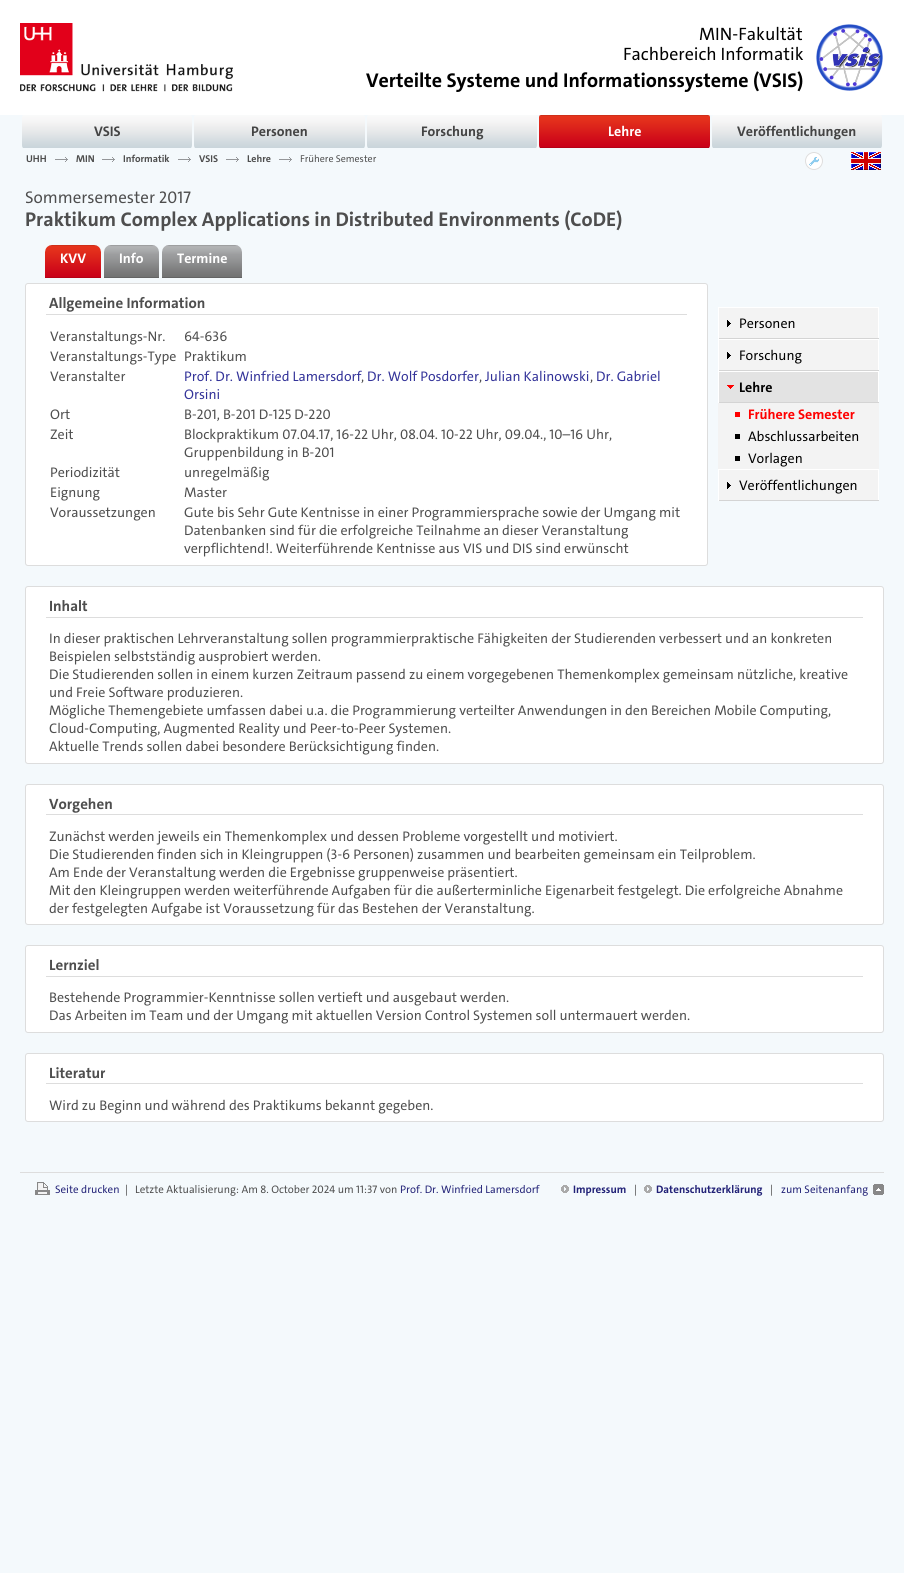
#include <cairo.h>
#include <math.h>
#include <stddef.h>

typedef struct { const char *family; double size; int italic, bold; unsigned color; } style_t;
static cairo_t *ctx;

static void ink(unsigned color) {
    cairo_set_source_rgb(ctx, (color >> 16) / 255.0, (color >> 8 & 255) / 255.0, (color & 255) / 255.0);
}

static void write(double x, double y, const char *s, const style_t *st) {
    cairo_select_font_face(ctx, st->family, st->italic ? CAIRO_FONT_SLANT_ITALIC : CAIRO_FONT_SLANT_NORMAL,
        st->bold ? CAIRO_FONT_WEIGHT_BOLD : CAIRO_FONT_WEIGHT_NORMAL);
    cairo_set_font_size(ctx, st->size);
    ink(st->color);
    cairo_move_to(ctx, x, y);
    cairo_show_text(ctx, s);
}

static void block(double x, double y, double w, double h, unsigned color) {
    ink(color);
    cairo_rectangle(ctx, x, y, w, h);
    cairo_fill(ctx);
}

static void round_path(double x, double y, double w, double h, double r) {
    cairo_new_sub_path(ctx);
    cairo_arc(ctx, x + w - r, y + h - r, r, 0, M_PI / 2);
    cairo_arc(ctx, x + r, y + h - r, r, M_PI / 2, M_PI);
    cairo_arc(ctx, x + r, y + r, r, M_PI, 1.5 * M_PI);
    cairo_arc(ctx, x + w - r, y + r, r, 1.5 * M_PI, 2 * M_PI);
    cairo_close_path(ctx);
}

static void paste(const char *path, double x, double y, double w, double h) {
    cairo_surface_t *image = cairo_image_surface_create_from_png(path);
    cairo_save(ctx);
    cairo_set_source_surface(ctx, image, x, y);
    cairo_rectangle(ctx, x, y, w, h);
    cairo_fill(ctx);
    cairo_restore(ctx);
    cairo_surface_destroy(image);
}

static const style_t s1 = {"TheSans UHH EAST", 18, 0, 0, 0x000000};
static const style_t s2 = {"TheSans UHH EAST", 20, 0, 1, 0x000000};
static const style_t s3 = {"TheSans UHH EAST", 14, 0, 1, 0x444444};
static const style_t s4 = {"TheSans UHH EAST", 14, 0, 1, 0xffffff};
static const style_t s5 = {"TheSans UHH EAST", 10, 0, 1, 0x4e4e4e};
static const style_t s6 = {"TheSans UHH EAST", 10, 0, 0, 0x4e4e4e};
static const style_t s7 = {"TheSans UHH EAST", 17, 0, 0, 0x4e4e4e};
static const style_t s8 = {"TheSans UHH EAST", 20, 0, 1, 0x4e4e4e};
static const style_t s9 = {"TheSans UHH EAST", 15, 0, 1, 0x4e4e4e};
static const style_t s10 = {"TheSans UHH EAST", 14, 0, 0, 0x4e4e4e};
static const style_t s11 = {"TheSans UHH EAST", 14, 0, 0, 0x333399};
static const style_t s12 = {"TheSans UHH EAST", 14, 0, 0, 0x000000};
static const style_t s13 = {"TheSans UHH EAST", 14, 0, 1, 0x000000};
static const style_t s14 = {"TheSans UHH EAST", 14, 0, 1, 0xff0000};
static const style_t s15 = {"TheSans UHH EAST", 11, 0, 0, 0x222277};
static const style_t s16 = {"TheSans UHH EAST", 11, 0, 0, 0x4e4e4e};
static const style_t s17 = {"TheSans UHH EAST", 11, 0, 1, 0x222277};

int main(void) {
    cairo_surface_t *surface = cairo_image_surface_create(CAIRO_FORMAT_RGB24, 904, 1573);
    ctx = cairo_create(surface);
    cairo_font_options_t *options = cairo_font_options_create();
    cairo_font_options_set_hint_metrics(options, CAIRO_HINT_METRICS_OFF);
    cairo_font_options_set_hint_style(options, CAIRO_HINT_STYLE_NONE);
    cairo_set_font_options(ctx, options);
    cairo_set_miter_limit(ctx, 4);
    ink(0xf4f9fc);
    cairo_paint(ctx);
    block(0, 0, 904, 115, 0xffffff);
    paste("pic1.png", 20, 23, 213, 69);
    write(699, 40, "MIN-Fakultät", &s1);
    write(623, 60, "Fachbereich Informatik", &s1);
    write(366, 87, "Verteilte Systeme und Informationssysteme (VSIS)", &s2);
    paste("pic2.png", 816, 24, 67, 67);
    paste("pic3.png", 22, 115, 170, 33);
    write(94, 136, "VSIS", &s3);
    paste("pic4.png", 194, 115, 171, 33);
    write(251, 136, "Personen", &s3);
    paste("pic3.png", 367, 115, 170, 33);
    write(421, 136, "Forschung", &s3);
    paste("pic5.png", 539, 115, 171, 33);
    write(608, 136, "Lehre", &s4);
    paste("pic3.png", 712, 115, 170, 33);
    write(737, 136, "Veröffentlichungen", &s3);
    write(26, 162, "UHH", &s5);
    paste("pic6.png", 55, 157, 13, 5);
    write(76, 162, "MIN", &s5);
    paste("pic6.png", 102, 157, 13, 5);
    write(123, 162, "Informatik", &s5);
    paste("pic6.png", 178, 157, 13, 5);
    write(199, 162, "VSIS", &s5);
    paste("pic6.png", 226, 157, 13, 5);
    write(247, 162, "Lehre", &s5);
    paste("pic6.png", 279, 157, 13, 5);
    write(300, 162, "Frühere Semester", &s6);
    ink(0xffffff);
    cairo_new_path(ctx);
    cairo_arc(ctx, 814, 161, 9, 0, 2 * M_PI);
    cairo_fill(ctx);
    paste("pic7.png", 809, 157, 10, 9);
    cairo_arc(ctx, 814, 161, 8.5, 0, 2 * M_PI);
    ink(0xdddddd);
    cairo_set_line_width(ctx, 1);
    cairo_stroke(ctx);
    paste("pic8.png", 851, 152, 30, 18);
    write(25, 203, "Sommersemester 2017", &s7);
    write(25, 226, "Praktikum Complex Applications in Distributed Environments (CoDE)", &s8);
    paste("pic9.png", 45, 245, 56, 33);
    write(60, 263, "KVV", &s4);
    paste("pic10.png", 104, 245, 55, 33);
    write(119, 263, "Info", &s4);
    paste("pic11.png", 162, 245, 80, 33);
    write(177, 263, "Termine", &s4);
    round_path(25.5, 283.5, 682, 282, 2.5);
    cairo_fill_preserve(ctx);
    ink(0xdddddd);
    cairo_stroke(ctx);
    block(46, 314, 641, 1, 0xdddddd);
    write(49, 308, "Allgemeine Information", &s9);
    write(50, 341, "Veranstaltungs-Nr.", &s10);
    write(184, 341, "64-636", &s10);
    write(50, 361, "Veranstaltungs-Type", &s10);
    write(184, 361, "Praktikum", &s10);
    write(50, 381, "Veranstalter", &s10);
    write(184, 381, "Prof. Dr. Winfried Lamersdorf", &s11);
    write(361, 381, ",", &s10);
    write(367, 381, "Dr. Wolf Posdorfer", &s11);
    write(479, 381, ",", &s10);
    write(485, 381, "Julian Kalinowski", &s11);
    write(590, 381, ",", &s10);
    write(596, 381, "Dr. Gabriel", &s11);
    write(184, 399, "Orsini", &s11);
    write(50, 419, "Ort", &s10);
    write(184, 419, "B-201, B-201 D-125 D-220", &s10);
    write(50, 439, "Zeit", &s10);
    write(184, 439, "Blockpraktikum 07.04.17, 16-22 Uhr, 08.04. 10-22 Uhr, 09.04., 10–16 Uhr,", &s10);
    write(184, 457, "Gruppenbildung in B-201", &s10);
    write(50, 477, "Periodizität", &s10);
    write(184, 477, "unregelmäßig", &s10);
    write(50, 497, "Eignung", &s10);
    write(184, 497, "Master", &s10);
    write(50, 517, "Voraussetzungen", &s10);
    write(184, 517, "Gute bis Sehr Gute Kentnisse in einer Programmiersprache sowie der Umgang mit", &s10);
    write(184, 535, "Datenbanken sind für die erfolgreiche Teilnahme an dieser Veranstaltung", &s10);
    write(184, 553, "verpflichtend!. Weiterführende Kentnisse aus VIS und DIS sind erwünscht", &s10);
    ink(0xffffff);
    round_path(25.5, 586.5, 858, 177, 2.5);
    cairo_fill_preserve(ctx);
    ink(0xdddddd);
    cairo_stroke(ctx);
    block(46, 617, 817, 1, 0xdddddd);
    write(49, 611, "Inhalt", &s9);
    write(49, 643, "In dieser praktischen Lehrveranstaltung sollen programmierpraktische Fähigkeiten der Studierenden verbessert und an konkreten", &s10);
    write(49, 661, "Beispielen selbstständig ausprobiert werden.", &s10);
    write(49, 679, "Die Studierenden sollen in einem kurzen Zeitraum passend zu einem vorgegebenen Themenkomplex gemeinsam nützliche, kreative", &s10);
    write(49, 697, "und Freie Software produzieren.", &s10);
    write(49, 715, "Mögliche Themengebiete umfassen dabei u.a. die Programmierung verteilter Anwendungen in den Bereichen Mobile Computing,", &s10);
    write(49, 733, "Cloud-Computing, Augmented Reality und Peer-to-Peer Systemen.", &s10);
    write(49, 751, "Aktuelle Trends sollen dabei besondere Berücksichtigung finden.", &s10);
    ink(0xffffff);
    round_path(25.5, 784.5, 858, 140, 2.5);
    cairo_fill_preserve(ctx);
    ink(0xdddddd);
    cairo_stroke(ctx);
    block(46, 814, 817, 1, 0xdddddd);
    write(49, 809, "Vorgehen", &s9);
    write(49, 841, "Zunächst werden jeweils ein Themenkomplex und dessen Probleme vorgestellt und motiviert.", &s10);
    write(49, 859, "Die Studierenden finden sich in Kleingruppen (3-6 Personen) zusammen und bearbeiten gemeinsam ein Teilproblem.", &s10);
    write(49, 877, "Am Ende der Veranstaltung werden die Ergebnisse gruppenweise präsentiert.", &s10);
    write(49, 895, "Mit den Kleingruppen werden weiterführende Aufgaben für die außerterminliche Eigenarbeit festgelegt. Die erfolgreiche Abnahme", &s10);
    write(49, 913, "der festgelegten Aufgabe ist Voraussetzung für das Bestehen der Veranstaltung.", &s10);
    ink(0xffffff);
    round_path(25.5, 945.5, 858, 87, 2.5);
    cairo_fill_preserve(ctx);
    ink(0xdddddd);
    cairo_stroke(ctx);
    block(46, 976, 817, 1, 0xdddddd);
    write(49, 970, "Lernziel", &s9);
    write(49, 1002, "Bestehende Programmier-Kenntnisse sollen vertieft und ausgebaut werden.", &s10);
    write(49, 1020, "Das Arbeiten im Team und der Umgang mit aktuellen Version Control Systemen soll untermauert werden.", &s10);
    ink(0xffffff);
    round_path(25.5, 1053.5, 858, 68, 2.5);
    cairo_fill_preserve(ctx);
    ink(0xdddddd);
    cairo_stroke(ctx);
    block(46, 1083, 817, 1, 0xdddddd);
    write(49, 1078, "Literatur", &s9);
    write(49, 1110, "Wird zu Beginn und während des Praktikums bekannt gegeben.", &s10);
    block(719, 308, 159, 30, 0xf3f3f3);
    paste("pic12.png", 727, 320, 4, 7);
    block(718, 307, 161, 1, 0xffffff);
    block(878, 307, 1, 32, 0xffffff);
    block(718, 338, 161, 1, 0xd4d4d4);
    block(718, 307, 1, 32, 0xffffff);
    write(739, 328, "Personen", &s12);
    block(719, 340, 159, 30, 0xf3f3f3);
    paste("pic12.png", 727, 352, 4, 7);
    block(718, 339, 161, 1, 0xffffff);
    block(878, 339, 1, 32, 0xffffff);
    block(718, 370, 161, 1, 0xd4d4d4);
    block(718, 339, 1, 32, 0xffffff);
    write(739, 360, "Forschung", &s12);
    block(719, 372, 159, 30, 0xe3e3e3);
    paste("pic13.png", 727, 385, 7, 4);
    block(718, 371, 161, 1, 0xffffff);
    block(878, 371, 1, 32, 0xffffff);
    block(718, 402, 161, 1, 0xd4d4d4);
    block(718, 371, 1, 32, 0xffffff);
    write(739, 392, "Lehre", &s13);
    block(718, 403, 161, 66, 0xf3f3f3);
    block(735, 412, 5, 5, 0xff0000);
    write(748, 419, "Frühere Semester", &s14);
    block(735, 434, 5, 5, 0x000000);
    write(748, 441, "Abschlussarbeiten", &s12);
    block(735, 456, 5, 5, 0x000000);
    write(748, 463, "Vorlagen", &s12);
    block(719, 470, 159, 30, 0xf3f3f3);
    paste("pic12.png", 727, 482, 4, 7);
    block(718, 469, 161, 1, 0xffffff);
    block(878, 469, 1, 32, 0xffffff);
    block(718, 500, 161, 1, 0xd4d4d4);
    block(718, 469, 1, 32, 0xffffff);
    write(739, 490, "Veröffentlichungen", &s12);
    block(20, 1172, 864, 1, 0xdddddd);
    paste("pic14.png", 35, 1182, 15, 13);
    write(55, 1193, "Seite drucken", &s15);
    write(125, 1193, "|", &s16);
    write(135, 1193, "Letzte Aktualisierung: Am 8. October 2024 um 11:37 von", &s16);
    write(400, 1193, "Prof. Dr. Winfried Lamersdorf", &s15);
    paste("pic15.png", 561, 1185, 8, 8);
    write(573, 1193, "Impressum", &s17);
    write(634, 1193, "|", &s16);
    paste("pic15.png", 644, 1185, 8, 8);
    write(656, 1193, "Datenschutzerklärung", &s17);
    write(770, 1193, "|", &s16);
    write(781, 1193, "zum Seitenanfang", &s15);
    paste("pic16.png", 873, 1184, 11, 11);
    cairo_surface_write_to_png(surface, "screenshot.png");
    cairo_font_options_destroy(options);
    cairo_destroy(ctx);
    cairo_surface_destroy(surface);
    return 0;
}
